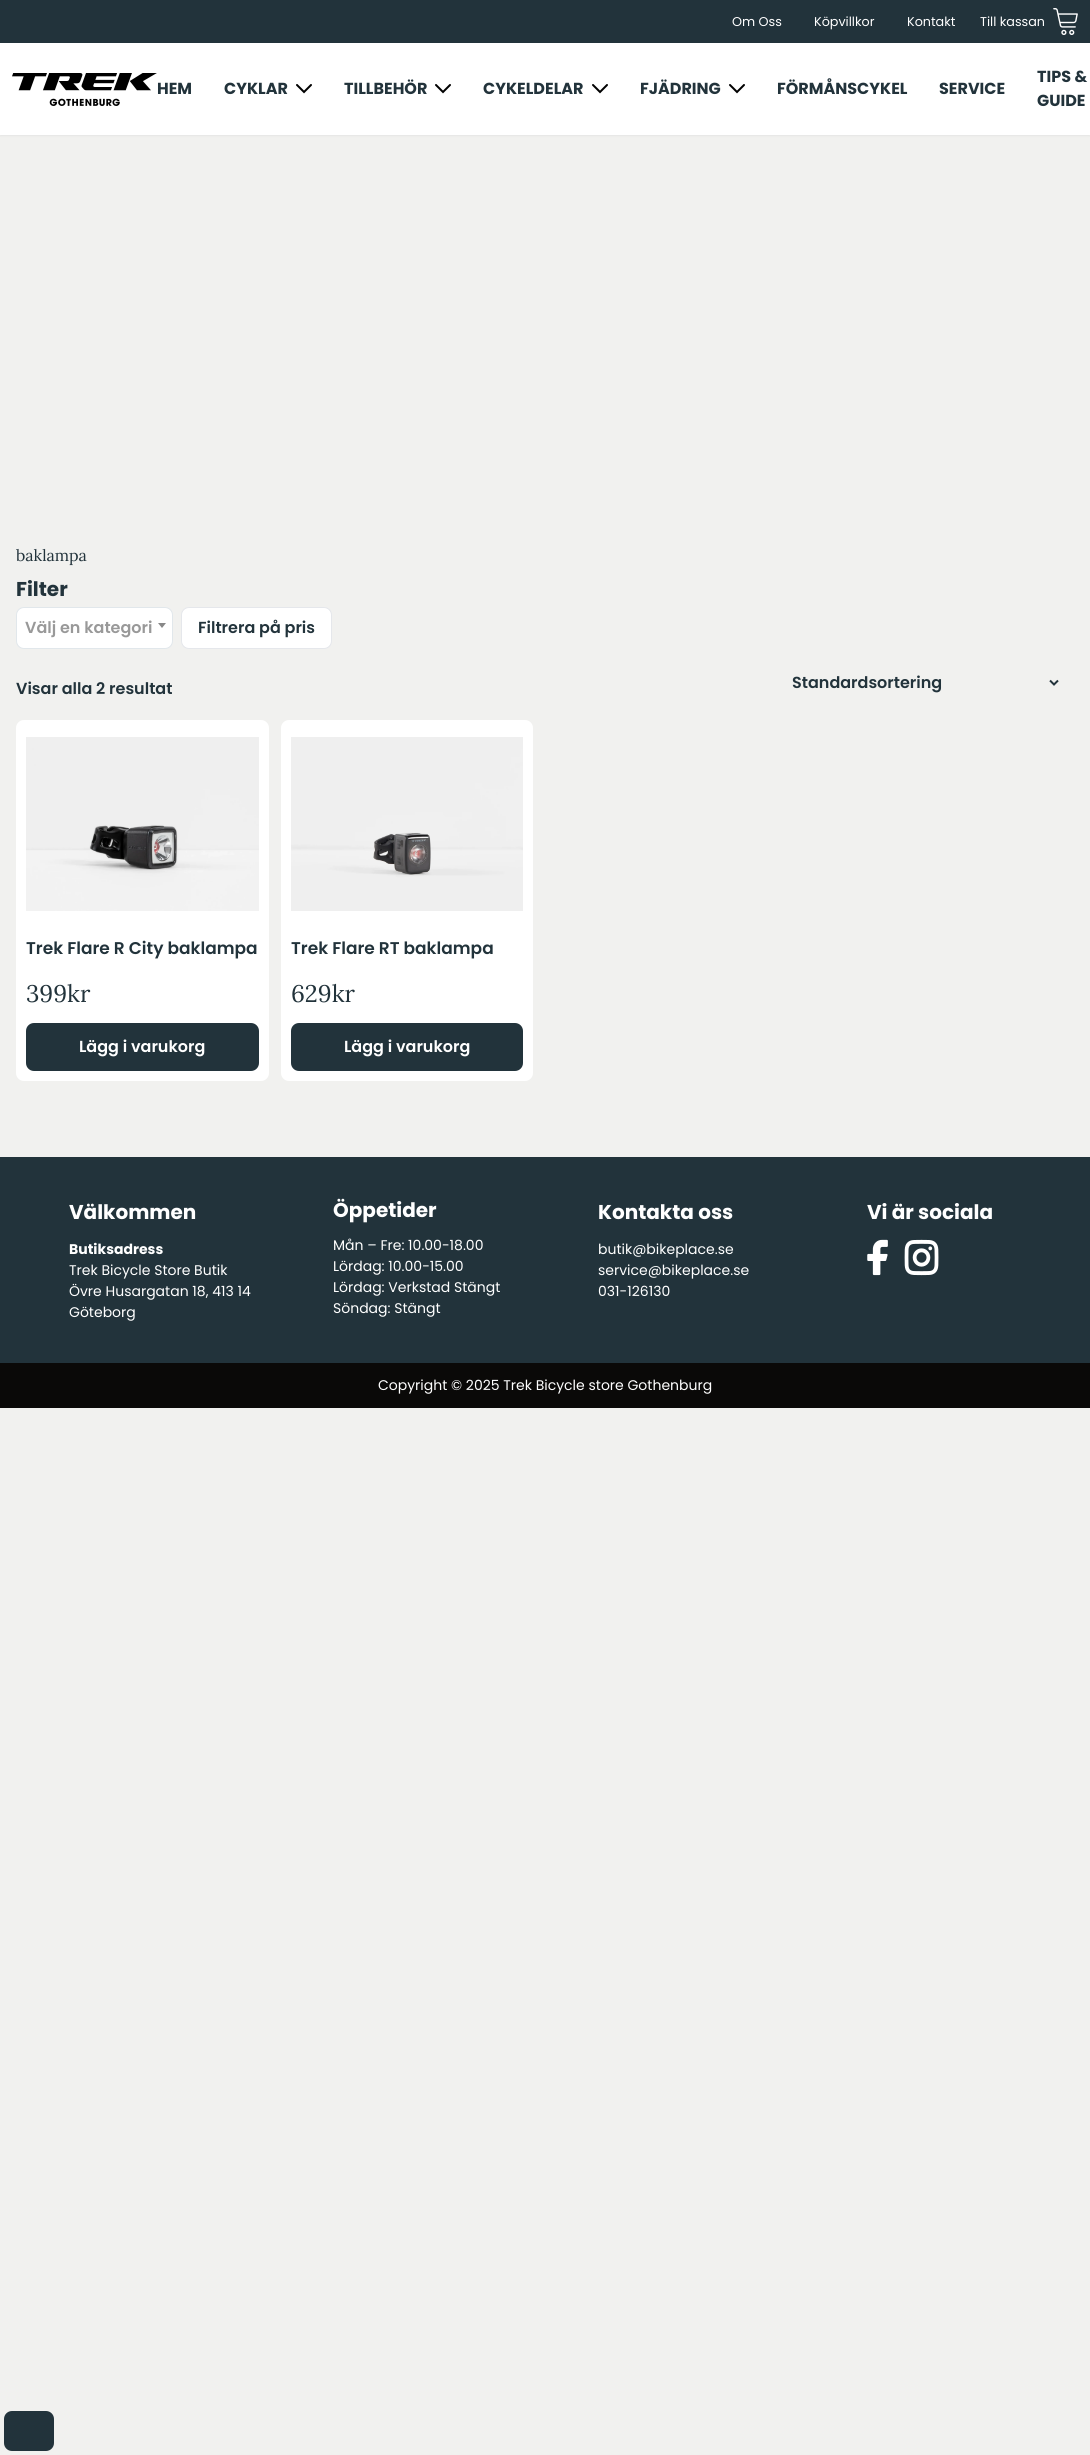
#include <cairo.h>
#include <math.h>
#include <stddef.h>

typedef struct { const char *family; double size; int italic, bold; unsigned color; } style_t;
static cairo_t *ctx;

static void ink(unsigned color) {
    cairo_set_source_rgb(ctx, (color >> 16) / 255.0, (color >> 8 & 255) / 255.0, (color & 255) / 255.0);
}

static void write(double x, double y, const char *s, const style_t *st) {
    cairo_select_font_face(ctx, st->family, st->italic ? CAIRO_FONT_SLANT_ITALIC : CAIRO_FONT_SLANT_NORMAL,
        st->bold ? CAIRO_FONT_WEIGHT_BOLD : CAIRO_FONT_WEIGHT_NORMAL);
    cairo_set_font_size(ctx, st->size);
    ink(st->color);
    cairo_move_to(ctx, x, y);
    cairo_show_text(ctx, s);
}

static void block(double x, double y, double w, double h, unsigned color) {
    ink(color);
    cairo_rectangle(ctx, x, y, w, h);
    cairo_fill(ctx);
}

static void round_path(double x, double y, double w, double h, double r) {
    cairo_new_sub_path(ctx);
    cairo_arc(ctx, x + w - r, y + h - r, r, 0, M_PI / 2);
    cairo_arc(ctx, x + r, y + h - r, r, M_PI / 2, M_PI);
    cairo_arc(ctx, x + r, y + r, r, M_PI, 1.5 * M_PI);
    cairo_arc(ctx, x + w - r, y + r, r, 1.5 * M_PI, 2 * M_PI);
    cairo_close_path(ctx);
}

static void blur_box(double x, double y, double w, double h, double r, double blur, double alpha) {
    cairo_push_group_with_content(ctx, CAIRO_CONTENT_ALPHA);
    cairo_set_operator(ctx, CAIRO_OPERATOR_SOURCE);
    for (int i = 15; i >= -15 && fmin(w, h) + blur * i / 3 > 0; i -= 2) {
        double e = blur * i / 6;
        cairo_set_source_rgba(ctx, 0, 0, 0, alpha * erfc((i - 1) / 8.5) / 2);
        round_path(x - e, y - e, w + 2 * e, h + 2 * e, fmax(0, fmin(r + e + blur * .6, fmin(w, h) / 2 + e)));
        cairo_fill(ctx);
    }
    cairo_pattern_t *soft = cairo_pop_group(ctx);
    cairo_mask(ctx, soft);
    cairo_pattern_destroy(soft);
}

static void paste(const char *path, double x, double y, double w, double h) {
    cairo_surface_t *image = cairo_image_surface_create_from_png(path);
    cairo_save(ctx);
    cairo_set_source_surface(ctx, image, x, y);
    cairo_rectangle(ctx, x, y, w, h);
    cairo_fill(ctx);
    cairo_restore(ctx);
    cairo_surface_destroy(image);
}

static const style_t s1 = {"Poppins", 12.75, 0, 0, 0xffffff};
static const style_t s2 = {"Poppins", 16, 0, 1, 0x22333b};
static const style_t s3 = {"Lora", 16, 0, 0, 0x22333b};
static const style_t s4 = {"Poppins", 20, 0, 1, 0x22333b};
static const style_t s5 = {"Poppins SemiBold", 16, 0, 0, 0x999999};
static const style_t s6 = {"Poppins SemiBold", 16, 0, 0, 0x22333b};
static const style_t s7 = {"Poppins SemiBold", 17, 0, 0, 0x22333b};
static const style_t s8 = {"Lora", 24, 0, 0, 0x22333b};
static const style_t s9 = {"Poppins SemiBold", 16, 0, 0, 0xffffff};
static const style_t s10 = {"Poppins", 20, 0, 1, 0xffffff};
static const style_t s11 = {"Poppins", 14, 0, 1, 0xffffff};
static const style_t s12 = {"Poppins", 14, 0, 0, 0xffffff};

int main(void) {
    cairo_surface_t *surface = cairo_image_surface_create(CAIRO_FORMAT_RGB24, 1090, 2455);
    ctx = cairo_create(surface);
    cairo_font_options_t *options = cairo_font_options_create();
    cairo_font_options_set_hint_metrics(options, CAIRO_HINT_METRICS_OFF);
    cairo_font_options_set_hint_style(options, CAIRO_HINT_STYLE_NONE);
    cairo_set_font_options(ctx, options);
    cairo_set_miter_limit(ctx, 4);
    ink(0xf1f1ef);
    cairo_paint(ctx);
    block(0, 0, 1090, 43, 0x22333b);
    write(732, 26, "Om Oss", &s1);
    write(814, 26, "Köpvillkor", &s1);
    write(907, 26, "Kontakt", &s1);
    write(980, 26, "Till kassan", &s1);
    paste("pic1.png", 1053, 8, 25, 27);
    ink(0x000000);
    blur_box(0, 44, 1090, 92, 0, 1, 0.05);
    block(0, 43, 1090, 92, 0xffffff);
    paste("pic2.png", 12, 73, 145, 33);
    write(157, 94, "HEM", &s2);
    write(224, 94, "CYKLAR", &s2);
    cairo_new_path(ctx);
    cairo_move_to(ctx, 311, 85);
    cairo_line_to(ctx, 304, 92);
    cairo_line_to(ctx, 297, 85);
    ink(0x000000);
    cairo_set_line_cap(ctx, CAIRO_LINE_CAP_ROUND);
    cairo_stroke(ctx);
    write(344, 94, "TILLBEHÖR", &s2);
    cairo_new_path(ctx);
    cairo_move_to(ctx, 450, 85);
    cairo_line_to(ctx, 443, 92);
    cairo_line_to(ctx, 436, 85);
    ink(0x000000);
    cairo_stroke(ctx);
    write(483, 94, "CYKELDELAR", &s2);
    cairo_new_path(ctx);
    cairo_move_to(ctx, 607, 85);
    cairo_line_to(ctx, 600, 92);
    cairo_line_to(ctx, 593, 85);
    ink(0x000000);
    cairo_stroke(ctx);
    write(640, 94, "FJÄDRING", &s2);
    cairo_new_path(ctx);
    cairo_move_to(ctx, 744, 85);
    cairo_line_to(ctx, 737, 92);
    cairo_line_to(ctx, 730, 85);
    ink(0x000000);
    cairo_stroke(ctx);
    write(777, 94, "FÖRMÅNSCYKEL", &s2);
    write(939, 94, "SERVICE", &s2);
    write(1037, 82, "TIPS &", &s2);
    write(1037, 106, "GUIDE", &s2);
    write(16, 561, "baklampa", &s3);
    write(16, 596, "Filter", &s4);
    ink(0xffffff);
    round_path(16.5, 607.5, 156, 41, 7.5);
    cairo_fill_preserve(ctx);
    ink(0xe1e7eb);
    cairo_set_line_width(ctx, 1);
    cairo_set_line_cap(ctx, CAIRO_LINE_CAP_BUTT);
    cairo_stroke(ctx);
    write(25, 633, "Välj en kategori", &s5);
    ink(0x888888);
    cairo_new_path(ctx);
    cairo_move_to(ctx, 158, 623);
    cairo_line_to(ctx, 166, 623);
    cairo_line_to(ctx, 162, 628);
    cairo_close_path(ctx);
    cairo_fill(ctx);
    ink(0xffffff);
    round_path(181.5, 607.5, 150, 41, 7.5);
    cairo_fill_preserve(ctx);
    ink(0xe5e7eb);
    cairo_stroke(ctx);
    write(198, 633, "Filtrera på pris", &s6);
    write(16, 694, "Visar alla 2 resultat", &s6);
    cairo_new_path(ctx);
    cairo_move_to(ctx, 1050, 680.5);
    cairo_line_to(ctx, 1054, 684.5);
    cairo_line_to(ctx, 1058, 680.5);
    cairo_set_line_width(ctx, 2);
    cairo_stroke(ctx);
    write(792, 688, "Standardsortering", &s6);
    ink(0xffffff);
    round_path(16, 720, 253, 361, 8);
    cairo_fill(ctx);
    paste("pic3.png", 26, 737, 233, 174);
    write(26, 954, "Trek Flare R City baklampa", &s7);
    write(26, 1002, "399kr", &s8);
    round_path(26, 1023, 233, 48, 8);
    cairo_fill(ctx);
    write(79, 1052, "Lägg i varukorg", &s9);
    round_path(281, 720, 252, 361, 8);
    cairo_fill(ctx);
    paste("pic4.png", 291, 737, 232, 174);
    write(291, 954, "Trek Flare RT baklampa", &s7);
    write(291, 1002, "629kr", &s8);
    round_path(291, 1023, 232, 48, 8);
    cairo_fill(ctx);
    write(344, 1052, "Lägg i varukorg", &s9);
    block(0, 1157, 1090, 206, 0x22333b);
    write(69, 1219, "Välkommen", &s10);
    write(69, 1254, "Butiksadress", &s11);
    write(69, 1275, "Trek Bicycle Store Butik", &s12);
    write(69, 1296, "Övre Husargatan 18, 413 14", &s12);
    write(69, 1317, "Göteborg", &s12);
    write(333, 1217, "Öppetider", &s10);
    write(333, 1250, "Mån – Fre: 10.00-18.00", &s12);
    write(333, 1271, "Lördag: 10.00-15.00", &s12);
    write(333, 1292, "Lördag: Verkstad Stängt", &s12);
    write(333, 1313, "Söndag: Stängt", &s12);
    write(598, 1219, "Kontakta oss", &s10);
    write(598, 1254, "butik@bikeplace.se", &s12);
    write(598, 1275, "service@bikeplace.se", &s12);
    write(598, 1296, "031-126130", &s12);
    write(867, 1219, "Vi är sociala", &s10);
    paste("pic5.png", 867, 1239, 21, 37);
    paste("pic6.png", 904, 1239, 35, 37);
    block(0, 1363, 1090, 45, 0x0a0908);
    write(378, 1390, "Copyright © 2025 Trek Bicycle store Gothenburg", &s12);
    ink(0x22333b);
    round_path(4, 2411, 50, 40, 8);
    cairo_fill(ctx);
    cairo_surface_write_to_png(surface, "screenshot.png");
    cairo_font_options_destroy(options);
    cairo_destroy(ctx);
    cairo_surface_destroy(surface);
    return 0;
}
